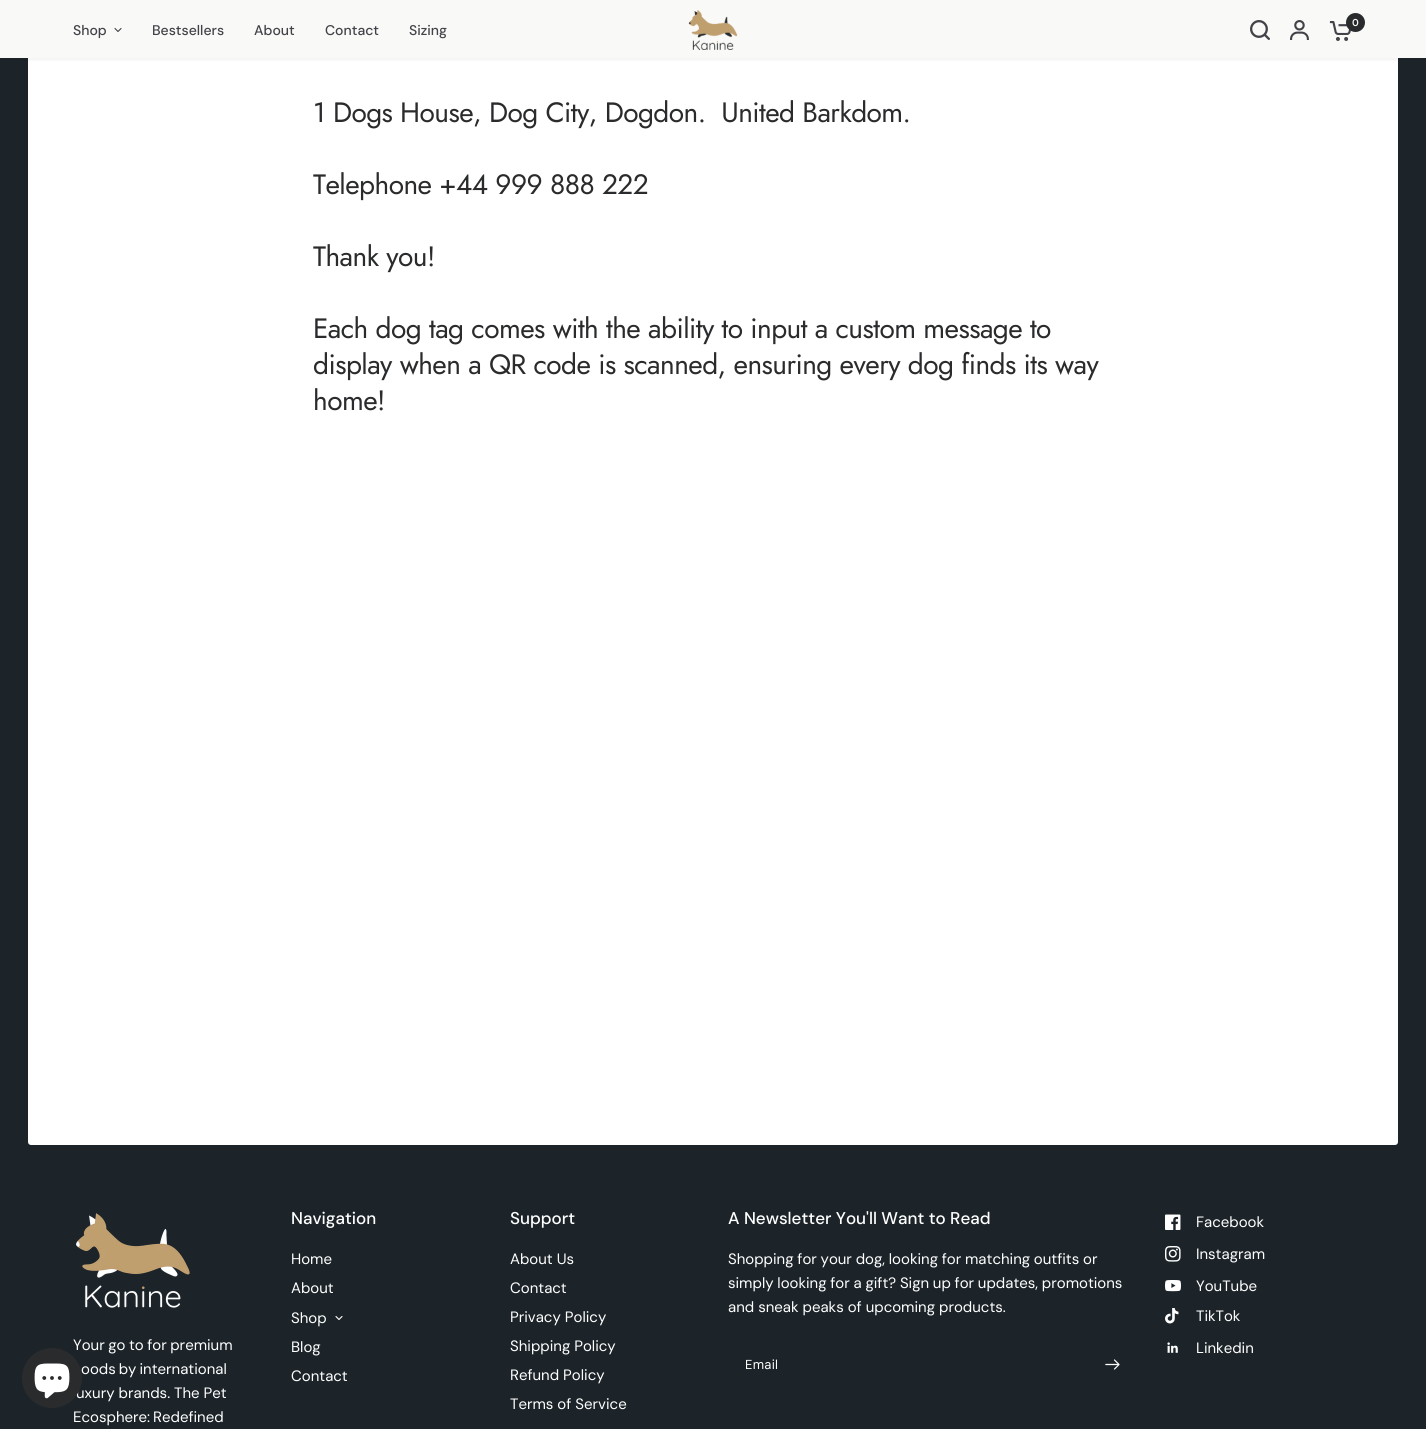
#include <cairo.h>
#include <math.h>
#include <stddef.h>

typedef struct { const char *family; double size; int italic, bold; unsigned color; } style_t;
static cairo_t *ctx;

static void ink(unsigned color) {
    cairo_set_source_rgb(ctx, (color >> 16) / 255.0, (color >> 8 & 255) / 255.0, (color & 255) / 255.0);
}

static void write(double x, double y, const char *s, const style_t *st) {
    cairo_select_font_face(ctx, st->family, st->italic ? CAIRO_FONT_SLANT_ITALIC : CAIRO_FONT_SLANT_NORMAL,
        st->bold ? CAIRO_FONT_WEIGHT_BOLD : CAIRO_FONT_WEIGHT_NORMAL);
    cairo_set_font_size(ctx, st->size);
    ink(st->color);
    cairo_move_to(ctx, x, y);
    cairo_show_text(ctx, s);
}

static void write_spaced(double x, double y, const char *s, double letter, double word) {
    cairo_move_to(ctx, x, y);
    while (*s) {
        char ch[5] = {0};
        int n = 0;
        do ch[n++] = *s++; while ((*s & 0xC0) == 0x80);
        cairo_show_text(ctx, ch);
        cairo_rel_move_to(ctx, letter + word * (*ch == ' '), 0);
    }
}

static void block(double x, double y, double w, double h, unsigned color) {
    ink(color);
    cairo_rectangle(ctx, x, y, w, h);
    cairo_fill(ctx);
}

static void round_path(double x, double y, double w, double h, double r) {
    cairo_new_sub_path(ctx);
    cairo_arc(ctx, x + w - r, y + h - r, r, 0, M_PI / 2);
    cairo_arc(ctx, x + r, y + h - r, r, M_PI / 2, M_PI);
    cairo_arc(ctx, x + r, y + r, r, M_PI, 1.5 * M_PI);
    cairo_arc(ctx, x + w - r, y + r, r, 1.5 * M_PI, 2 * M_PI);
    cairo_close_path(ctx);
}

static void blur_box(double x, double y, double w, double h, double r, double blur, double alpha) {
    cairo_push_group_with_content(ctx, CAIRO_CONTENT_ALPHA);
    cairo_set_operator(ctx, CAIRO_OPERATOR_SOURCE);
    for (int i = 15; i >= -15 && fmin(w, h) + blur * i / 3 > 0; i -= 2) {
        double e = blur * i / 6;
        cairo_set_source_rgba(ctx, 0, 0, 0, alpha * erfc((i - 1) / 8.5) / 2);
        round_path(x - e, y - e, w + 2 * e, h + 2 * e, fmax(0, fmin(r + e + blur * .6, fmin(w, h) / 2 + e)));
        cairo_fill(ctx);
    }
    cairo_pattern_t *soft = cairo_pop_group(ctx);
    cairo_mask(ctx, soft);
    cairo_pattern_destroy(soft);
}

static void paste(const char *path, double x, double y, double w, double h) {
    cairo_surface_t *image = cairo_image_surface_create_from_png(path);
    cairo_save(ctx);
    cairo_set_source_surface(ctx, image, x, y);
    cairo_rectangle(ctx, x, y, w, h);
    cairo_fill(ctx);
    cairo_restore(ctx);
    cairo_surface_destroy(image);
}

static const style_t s1 = {"DM Sans", 15, 0, 0, 0xffffff};
static const style_t s2 = {"DM Sans SemiBold", 10, 0, 0, 0xf9f9f7};
static const style_t s3 = {"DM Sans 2 Medium", 14, 0, 0, 0x444249};
static const style_t s4 = {"DM Sans Medium", 17, 0, 0, 0xffffff};

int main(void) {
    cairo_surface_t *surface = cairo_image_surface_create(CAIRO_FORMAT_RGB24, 1426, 1429);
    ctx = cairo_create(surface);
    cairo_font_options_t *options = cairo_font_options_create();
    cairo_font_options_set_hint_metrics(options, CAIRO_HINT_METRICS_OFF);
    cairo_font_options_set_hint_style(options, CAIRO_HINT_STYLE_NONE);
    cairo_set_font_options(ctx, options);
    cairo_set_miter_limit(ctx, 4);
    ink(0x1c2429);
    cairo_paint(ctx);
    cairo_select_font_face(ctx, "DM Sans", CAIRO_FONT_SLANT_NORMAL, CAIRO_FONT_WEIGHT_NORMAL);
    cairo_set_font_size(ctx, 15);
    ink(0xffffff);
    write_spaced(73, 1350, "Your go to for premium", 0, -0.5);
    write(76, 1398, "uxury brands. The Pet", &s1);
    ink(0x2a2b2d);
    cairo_new_path(ctx);
    cairo_arc(ctx, 52, 1378, 30, 0, 2 * M_PI);
    cairo_fill(ctx);
    paste("pic1.png", 34, 1363, 36, 36);
    ink(0xffffff);
    round_path(28, -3, 1370, 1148, 3);
    cairo_fill(ctx);
    block(0, 0, 1426, 58, 0xf9f9f7);
    cairo_save(ctx);
    cairo_rectangle(ctx, 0, 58, 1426, 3);
    cairo_clip(ctx);
    ink(0x000000);
    blur_box(0, -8, 1426, 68, 0, 2.5, 0.06);
    cairo_restore(ctx);
    paste("pic2.png", 688, 10, 50, 40);
    paste("pic3.png", 1250, 20, 20, 20);
    paste("pic4.png", 1290, 20, 19, 20);
    paste("pic5.png", 1329, 21, 22, 20);
    ink(0x2a2b2d);
    cairo_arc(ctx, 1355.5, 22.5, 9.5, 0, 2 * M_PI);
    cairo_fill(ctx);
    write(1352, 26, "0", &s2);
    write(73, 35, "Shop", &s3);
    cairo_new_path(ctx);
    cairo_move_to(ctx, 121, 28.5);
    cairo_line_to(ctx, 118, 31.5);
    cairo_line_to(ctx, 115, 28.5);
    cairo_set_line_width(ctx, 1.1);
    cairo_set_line_cap(ctx, CAIRO_LINE_CAP_ROUND);
    cairo_set_line_join(ctx, CAIRO_LINE_JOIN_ROUND);
    cairo_stroke(ctx);
    write(152, 35, "Bestsellers", &s3);
    write(254, 35, "About", &s3);
    write(325, 35, "Contact", &s3);
    write(409, 35, "Sizing", &s3);
    cairo_select_font_face(ctx, "Jost", CAIRO_FONT_SLANT_NORMAL, CAIRO_FONT_WEIGHT_NORMAL);
    cairo_set_font_size(ctx, 28);
    ink(0x2a2b2d);
    write_spaced(313, 122, "1 Dogs House, Dog City, Dogdon.  United Barkdom.", -0.55, 0);
    write_spaced(313, 194, "Telephone +44 999 888 222", -0.55, 0);
    write_spaced(313, 266, "Thank you!", -0.55, 0);
    write_spaced(313, 338, "Each dog tag comes with the ability to input a custom message to", -0.55, 0);
    write_spaced(313, 374, "display when a QR code is scanned, ensuring every dog finds its way", -0.55, 0);
    write_spaced(313, 410, "home!", -0.55, 0);
    write(291, 1224, "Navigation", &s4);
    write(291, 1264, "Home", &s1);
    write(291, 1293, "About", &s1);
    write(291, 1323, "Shop", &s1);
    cairo_new_path(ctx);
    cairo_move_to(ctx, 342, 1316.5);
    cairo_line_to(ctx, 339, 1319.5);
    cairo_line_to(ctx, 336, 1316.5);
    cairo_stroke(ctx);
    write(291, 1352, "Blog", &s1);
    write(291, 1381, "Contact", &s1);
    write(510, 1224, "Support", &s4);
    write(510, 1264, "About Us", &s1);
    write(510, 1293, "Contact", &s1);
    write(510, 1322, "Privacy Policy", &s1);
    write(510, 1351, "Shipping Policy", &s1);
    write(510, 1380, "Refund Policy", &s1);
    write(510, 1409, "Terms of Service", &s1);
    write(728, 1224, "A Newsletter You'll Want to Read", &s4);
    cairo_select_font_face(ctx, "DM Sans", CAIRO_FONT_SLANT_NORMAL, CAIRO_FONT_WEIGHT_NORMAL);
    cairo_set_font_size(ctx, 15);
    write_spaced(728, 1264, "Shopping for your dog, looking for matching outfits or", 0, -0.25);
    write_spaced(728, 1288, "simply looking for a gift? Sign up for updates, promotions", 0, -0.25);
    write(728, 1312, "and sneak peaks of upcoming products.", &s1);
    cairo_select_font_face(ctx, "DM Sans 2", CAIRO_FONT_SLANT_NORMAL, CAIRO_FONT_WEIGHT_NORMAL);
    cairo_set_font_size(ctx, 13);
    write_spaced(745, 1369, "Email", 0.25, 0);
    paste("pic6.png", 1105, 1359, 15, 11);
    paste("pic7.png", 1165, 1214, 16, 16);
    write(1196, 1227, "Facebook", &s1);
    paste("pic8.png", 1165, 1246, 16, 16);
    write(1196, 1259, "Instagram", &s1);
    paste("pic9.png", 1165, 1280, 16, 12);
    write(1196, 1291, "YouTube", &s1);
    paste("pic10.png", 1165, 1308, 14, 16);
    write(1196, 1321, "TikTok", &s1);
    paste("pic11.png", 1167, 1342, 11, 11);
    write(1196, 1353, "Linkedin", &s1);
    paste("pic12.png", 76, 1213, 114, 95);
    write_spaced(81, 1374, "oods by international", 0, -1);
    write_spaced(73, 1422, "Ecosphere: Redefined", 0, -1);
    cairo_surface_write_to_png(surface, "screenshot.png");
    cairo_font_options_destroy(options);
    cairo_destroy(ctx);
    cairo_surface_destroy(surface);
    return 0;
}
